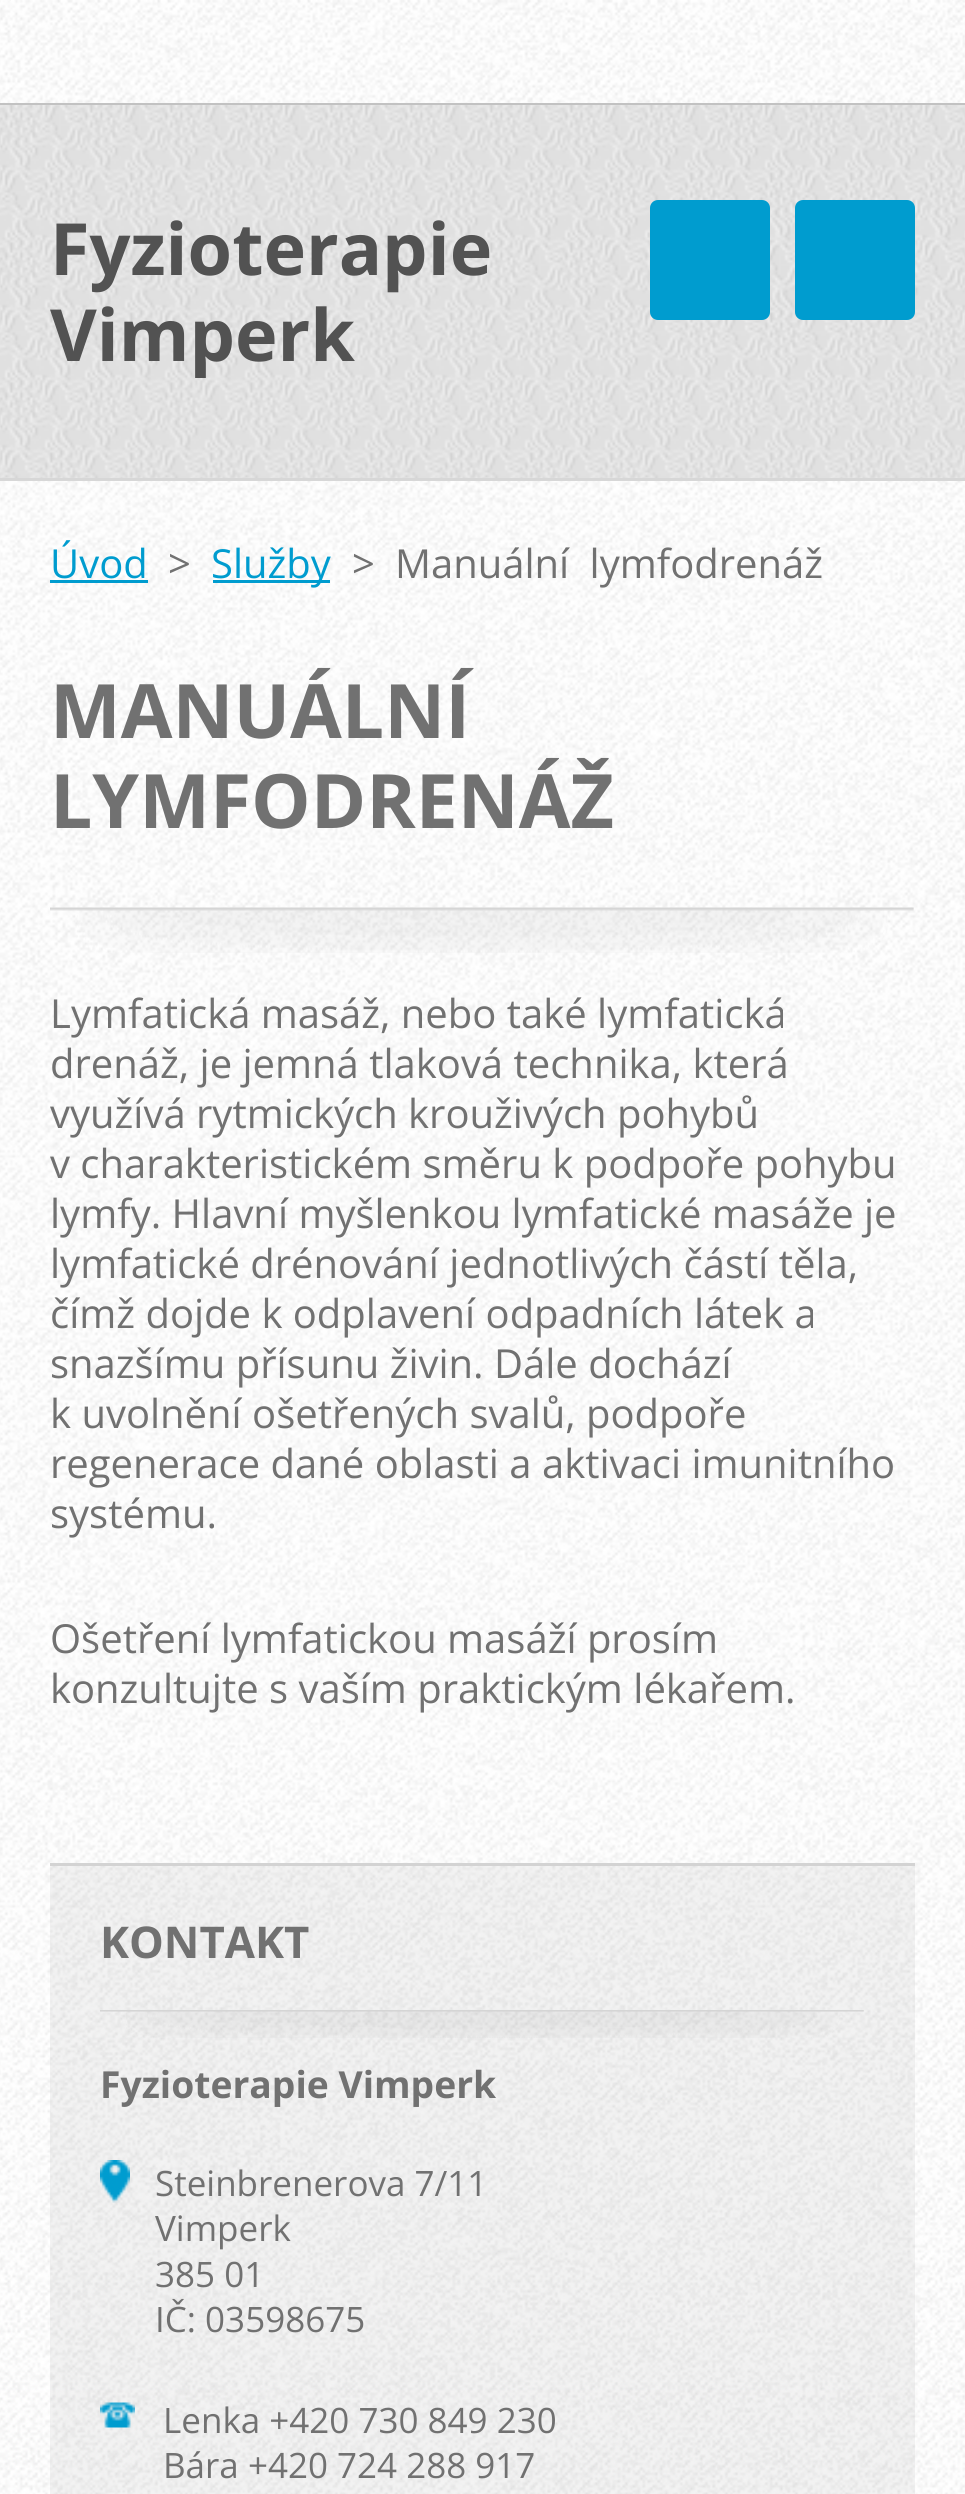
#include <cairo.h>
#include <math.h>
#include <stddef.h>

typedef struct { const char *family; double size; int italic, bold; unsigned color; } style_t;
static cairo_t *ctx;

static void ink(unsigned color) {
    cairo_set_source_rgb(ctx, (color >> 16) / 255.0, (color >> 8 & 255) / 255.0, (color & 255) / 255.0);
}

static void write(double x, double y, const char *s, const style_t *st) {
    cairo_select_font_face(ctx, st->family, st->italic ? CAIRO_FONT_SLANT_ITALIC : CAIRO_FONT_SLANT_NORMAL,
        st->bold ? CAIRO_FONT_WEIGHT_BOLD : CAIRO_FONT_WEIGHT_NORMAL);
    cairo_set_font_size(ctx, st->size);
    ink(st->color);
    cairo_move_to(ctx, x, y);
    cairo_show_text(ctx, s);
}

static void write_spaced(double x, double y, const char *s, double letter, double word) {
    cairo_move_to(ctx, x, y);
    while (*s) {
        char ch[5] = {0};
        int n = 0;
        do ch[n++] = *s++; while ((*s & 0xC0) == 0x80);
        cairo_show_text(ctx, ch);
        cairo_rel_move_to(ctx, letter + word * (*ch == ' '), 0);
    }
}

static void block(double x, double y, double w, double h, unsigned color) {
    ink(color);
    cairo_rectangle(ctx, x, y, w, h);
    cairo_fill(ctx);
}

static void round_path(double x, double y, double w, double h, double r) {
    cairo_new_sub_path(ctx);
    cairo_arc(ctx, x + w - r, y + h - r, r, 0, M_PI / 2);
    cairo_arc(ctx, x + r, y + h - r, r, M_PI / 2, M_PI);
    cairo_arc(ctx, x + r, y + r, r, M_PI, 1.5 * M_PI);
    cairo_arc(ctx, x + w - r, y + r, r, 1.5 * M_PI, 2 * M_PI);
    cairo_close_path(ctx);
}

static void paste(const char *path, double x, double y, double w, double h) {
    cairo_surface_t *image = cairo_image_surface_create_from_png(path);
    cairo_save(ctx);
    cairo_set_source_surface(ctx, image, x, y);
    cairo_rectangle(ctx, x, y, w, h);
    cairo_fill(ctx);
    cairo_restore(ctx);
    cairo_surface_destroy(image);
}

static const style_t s1 = {"Open Sans", 72, 0, 1, 0x525252};
static const style_t s2 = {"Open Sans", 40, 0, 0, 0x009ccf};
static const style_t s3 = {"Open Sans", 40, 0, 0, 0x717171};
static const style_t s4 = {"Open Sans", 75, 0, 1, 0x717171};
static const style_t s5 = {"Open Sans", 43.75, 0, 1, 0x717171};
static const style_t s6 = {"Open Sans", 37.25, 0, 1, 0x717171};
static const style_t s7 = {"Open Sans", 35, 0, 0, 0x717171};

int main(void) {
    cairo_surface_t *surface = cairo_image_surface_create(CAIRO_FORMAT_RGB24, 965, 2494);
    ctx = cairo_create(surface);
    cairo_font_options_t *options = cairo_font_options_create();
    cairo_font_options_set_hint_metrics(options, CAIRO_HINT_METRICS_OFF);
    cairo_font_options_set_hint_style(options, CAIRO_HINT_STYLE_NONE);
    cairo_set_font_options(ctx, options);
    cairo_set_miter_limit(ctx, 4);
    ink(0xffffff);
    cairo_paint(ctx);
    paste("pic1.png", 0, 0, 965, 2494);
    paste("pic2.png", 11, 0, 941, 1);
    block(0, 103, 965, 2, 0xc2c2c2);
    paste("pic3.png", 0, 105, 965, 373);
    block(0, 478, 965, 3, 0xd7d7d7);
    write(50, 275, "Fyzioterapie", &s1);
    cairo_save(ctx);
    cairo_rectangle(ctx, 50, 205, 520, 173);
    cairo_clip(ctx);
    write(50, 361, "Vimperk", &s1);
    cairo_restore(ctx);
    ink(0x009ccf);
    round_path(650, 200, 120, 120, 8);
    cairo_fill(ctx);
    round_path(795, 200, 120, 120, 8);
    cairo_fill(ctx);
    write(50, 578, "Úvod", &s2);
    block(50, 580, 98, 3, 0x009ccf);
    write(168, 578, ">", &s3);
    block(213, 580, 117, 3, 0x009ccf);
    write(211, 578, "Služby", &s2);
    write(352, 578, ">", &s3);
    write_spaced(395, 578, "Manuální lymfodrenáž", 0, 10);
    paste("pic4.png", 50, 907, 864, 46);
    write(50, 738, "MANUÁLNÍ", &s4);
    write(50, 828, "LYMFODRENÁŽ", &s4);
    write(50, 1028, "Lymfatická masáž, nebo také lymfatická", &s3);
    write(50, 1078, "drenáž, je jemná tlaková technika, která", &s3);
    write(50, 1128, "využívá rytmických krouživých pohybů", &s3);
    write(50, 1178, "v charakteristickém směru k podpoře pohybu", &s3);
    write(50, 1228, "lymfy. Hlavní myšlenkou lymfatické masáže je", &s3);
    write(50, 1278, "lymfatické drénování jednotlivých částí těla,", &s3);
    write(50, 1328, "čímž dojde k odplavení odpadních látek a", &s3);
    write(50, 1378, "snazšímu přísunu živin. Dále dochází", &s3);
    write(50, 1428, "k uvolnění ošetřených svalů, podpoře", &s3);
    write(50, 1478, "regenerace dané oblasti a aktivaci imunitního", &s3);
    write(50, 1528, "systému.", &s3);
    write(50, 1653, "Ošetření lymfatickou masáží prosím", &s3);
    write(50, 1703, "konzultujte s vaším praktickým lékařem.", &s3);
    cairo_set_source_rgba(ctx, 0, 0, 0, 0.05);
    cairo_rectangle(ctx, 50, 1866, 865, 628);
    cairo_fill(ctx);
    block(50, 1863, 865, 3, 0xd3d3d3);
    paste("pic5.png", 100, 2010, 764, 28);
    write(100, 1958, "KONTAKT", &s5);
    write(100, 2098, "Fyzioterapie Vimperk", &s6);
    paste("pic6.png", 100, 2160, 30, 43);
    write(155, 2196, "Steinbrenerova 7/11", &s7);
    write(155, 2241, "Vimperk", &s7);
    write(155, 2287, "385 01", &s7);
    write(155, 2332, "IČ: 03598675", &s7);
    paste("pic7.png", 100, 2402, 35, 26);
    write(163, 2433, "Lenka +420 730 849 230", &s7);
    write(163, 2478, "Bára +420 724 288 917", &s7);
    cairo_surface_write_to_png(surface, "screenshot.png");
    cairo_font_options_destroy(options);
    cairo_destroy(ctx);
    cairo_surface_destroy(surface);
    return 0;
}
